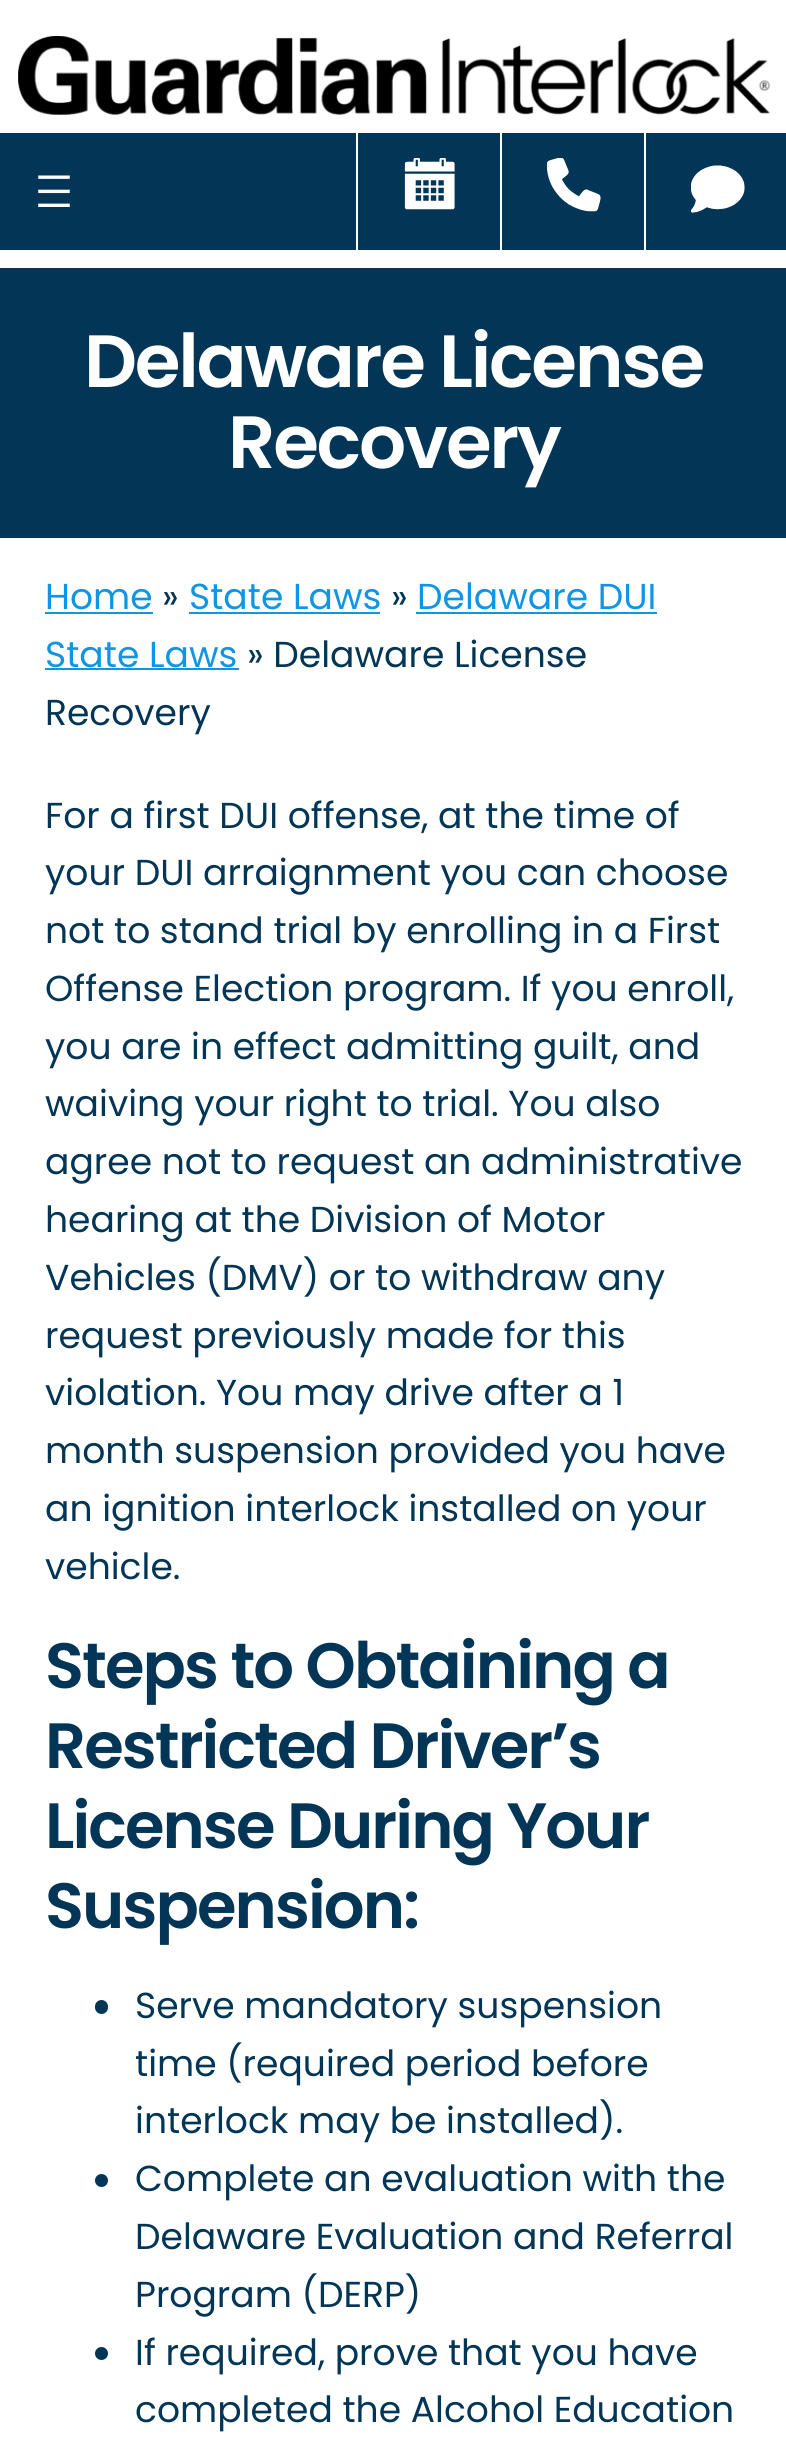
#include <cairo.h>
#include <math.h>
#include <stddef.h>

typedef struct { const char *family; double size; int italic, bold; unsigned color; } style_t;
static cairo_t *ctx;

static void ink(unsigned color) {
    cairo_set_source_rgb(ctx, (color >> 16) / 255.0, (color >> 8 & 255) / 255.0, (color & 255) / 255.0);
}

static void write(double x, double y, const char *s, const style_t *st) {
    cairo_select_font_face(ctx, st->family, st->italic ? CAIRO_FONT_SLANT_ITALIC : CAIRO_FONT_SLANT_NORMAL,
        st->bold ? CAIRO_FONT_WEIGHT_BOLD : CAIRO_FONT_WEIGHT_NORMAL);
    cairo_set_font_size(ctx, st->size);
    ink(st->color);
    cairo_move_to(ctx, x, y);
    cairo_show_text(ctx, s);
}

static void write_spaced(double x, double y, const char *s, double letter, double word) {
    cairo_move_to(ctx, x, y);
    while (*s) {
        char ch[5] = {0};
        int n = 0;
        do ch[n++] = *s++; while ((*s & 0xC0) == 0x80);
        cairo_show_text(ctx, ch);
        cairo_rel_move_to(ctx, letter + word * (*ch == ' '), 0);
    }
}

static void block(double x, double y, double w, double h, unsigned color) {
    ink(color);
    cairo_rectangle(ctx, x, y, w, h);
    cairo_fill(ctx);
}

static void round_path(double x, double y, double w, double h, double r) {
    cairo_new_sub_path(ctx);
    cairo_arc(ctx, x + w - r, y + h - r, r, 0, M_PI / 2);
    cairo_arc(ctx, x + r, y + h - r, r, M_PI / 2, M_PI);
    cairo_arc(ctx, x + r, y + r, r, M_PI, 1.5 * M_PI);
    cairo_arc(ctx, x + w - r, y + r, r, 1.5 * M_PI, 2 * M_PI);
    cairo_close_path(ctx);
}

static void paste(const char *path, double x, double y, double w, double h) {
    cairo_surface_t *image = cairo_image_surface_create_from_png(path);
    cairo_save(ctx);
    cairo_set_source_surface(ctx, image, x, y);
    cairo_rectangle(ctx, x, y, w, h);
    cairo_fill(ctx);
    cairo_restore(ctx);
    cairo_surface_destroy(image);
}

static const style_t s1 = {"Poppins", 36.1, 0, 0, 0x1095e4};
static const style_t s2 = {"Poppins", 36.1, 0, 0, 0x033656};

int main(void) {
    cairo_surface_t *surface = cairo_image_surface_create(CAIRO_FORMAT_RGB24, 786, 2444);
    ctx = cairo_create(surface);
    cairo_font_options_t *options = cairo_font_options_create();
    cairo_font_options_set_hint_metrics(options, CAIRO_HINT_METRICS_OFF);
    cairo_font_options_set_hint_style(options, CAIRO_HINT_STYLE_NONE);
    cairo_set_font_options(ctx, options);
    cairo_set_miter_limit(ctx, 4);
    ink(0xffffff);
    cairo_paint(ctx);
    paste("pic1.png", 18, 36, 752, 79);
    block(0, 133, 786, 117, 0x033656);
    paste("pic2.png", 38, 175, 32, 32);
    block(356, 133, 2, 117, 0xffffff);
    paste("pic3.png", 404, 158, 51, 52);
    block(500, 133, 2, 117, 0xffffff);
    paste("pic4.png", 547, 158, 54, 54);
    block(644, 133, 2, 117, 0xffffff);
    paste("pic5.png", 691, 165, 54, 48);
    block(0, 268, 786, 270, 0x033656);
    cairo_select_font_face(ctx, "Poppins SemiBold", CAIRO_FONT_SLANT_NORMAL, CAIRO_FONT_WEIGHT_NORMAL);
    cairo_set_font_size(ctx, 74);
    ink(0xffffff);
    write_spaced(84, 387, "Delaware License", -2.25, 0);
    write_spaced(228, 468, "Recovery", -2.25, 0);
    write(45, 609, "Home", &s1);
    block(45, 612, 108, 2, 0x1095e4);
    write(162, 609, "»", &s2);
    write(189, 609, "State Laws", &s1);
    block(189, 612, 191, 2, 0x1095e4);
    write(391, 609, "»", &s2);
    write(417, 609, "Delaware DUI", &s1);
    block(416, 612, 241, 2, 0x1095e4);
    write(45, 667, "State Laws", &s1);
    block(45, 668, 194, 2, 0x1095e4);
    write(247, 667, "» Delaware License", &s2);
    write(45, 725, "Recovery", &s2);
    write(45, 828, "For a first DUI offense, at the time of", &s2);
    write(45, 885, "your DUI arraignment you can choose", &s2);
    write(45, 943, "not to stand trial by enrolling in a First", &s2);
    write(45, 1001, "Offense Election program. If you enroll,", &s2);
    write(45, 1059, "you are in effect admitting guilt, and", &s2);
    write(45, 1116, "waiving your right to trial. You also", &s2);
    write(45, 1174, "agree not to request an administrative", &s2);
    write(45, 1232, "hearing at the Division of Motor", &s2);
    write(45, 1290, "Vehicles (DMV) or to withdraw any", &s2);
    write(45, 1348, "request previously made for this", &s2);
    write(45, 1405, "violation. You may drive after a 1", &s2);
    write(45, 1463, "month suspension provided you have", &s2);
    write(45, 1521, "an ignition interlock installed on your", &s2);
    write(45, 1579, "vehicle.", &s2);
    cairo_select_font_face(ctx, "Poppins SemiBold", CAIRO_FONT_SLANT_NORMAL, CAIRO_FONT_WEIGHT_NORMAL);
    cairo_set_font_size(ctx, 64);
    write_spaced(45, 1688, "Steps to Obtaining a", -1.9, 0);
    write_spaced(45, 1768, "Restricted Driver’s", -1.9, 0);
    write_spaced(45, 1848, "License During Your", -1.9, 0);
    write_spaced(45, 1928, "Suspension:", -1.9, 0);
    round_path(95, 2000, 13, 14, 6.5);
    cairo_fill(ctx);
    write(135, 2018, "Serve mandatory suspension", &s2);
    write(135, 2076, "time (required period before", &s2);
    write(135, 2133, "interlock may be installed).", &s2);
    cairo_new_path(ctx);
    cairo_arc(ctx, 101.5, 2180.5, 6.5, 0, 2 * M_PI);
    cairo_fill(ctx);
    write(135, 2191, "Complete an evaluation with the", &s2);
    write(135, 2249, "Delaware Evaluation and Referral", &s2);
    write(135, 2307, "Program (DERP)", &s2);
    cairo_new_path(ctx);
    cairo_arc(ctx, 101.5, 2353.5, 6.5, 0, 2 * M_PI);
    cairo_fill(ctx);
    write(135, 2365, "If required, prove that you have", &s2);
    write(135, 2422, "completed the Alcohol Education", &s2);
    cairo_surface_write_to_png(surface, "screenshot.png");
    cairo_font_options_destroy(options);
    cairo_destroy(ctx);
    cairo_surface_destroy(surface);
    return 0;
}
